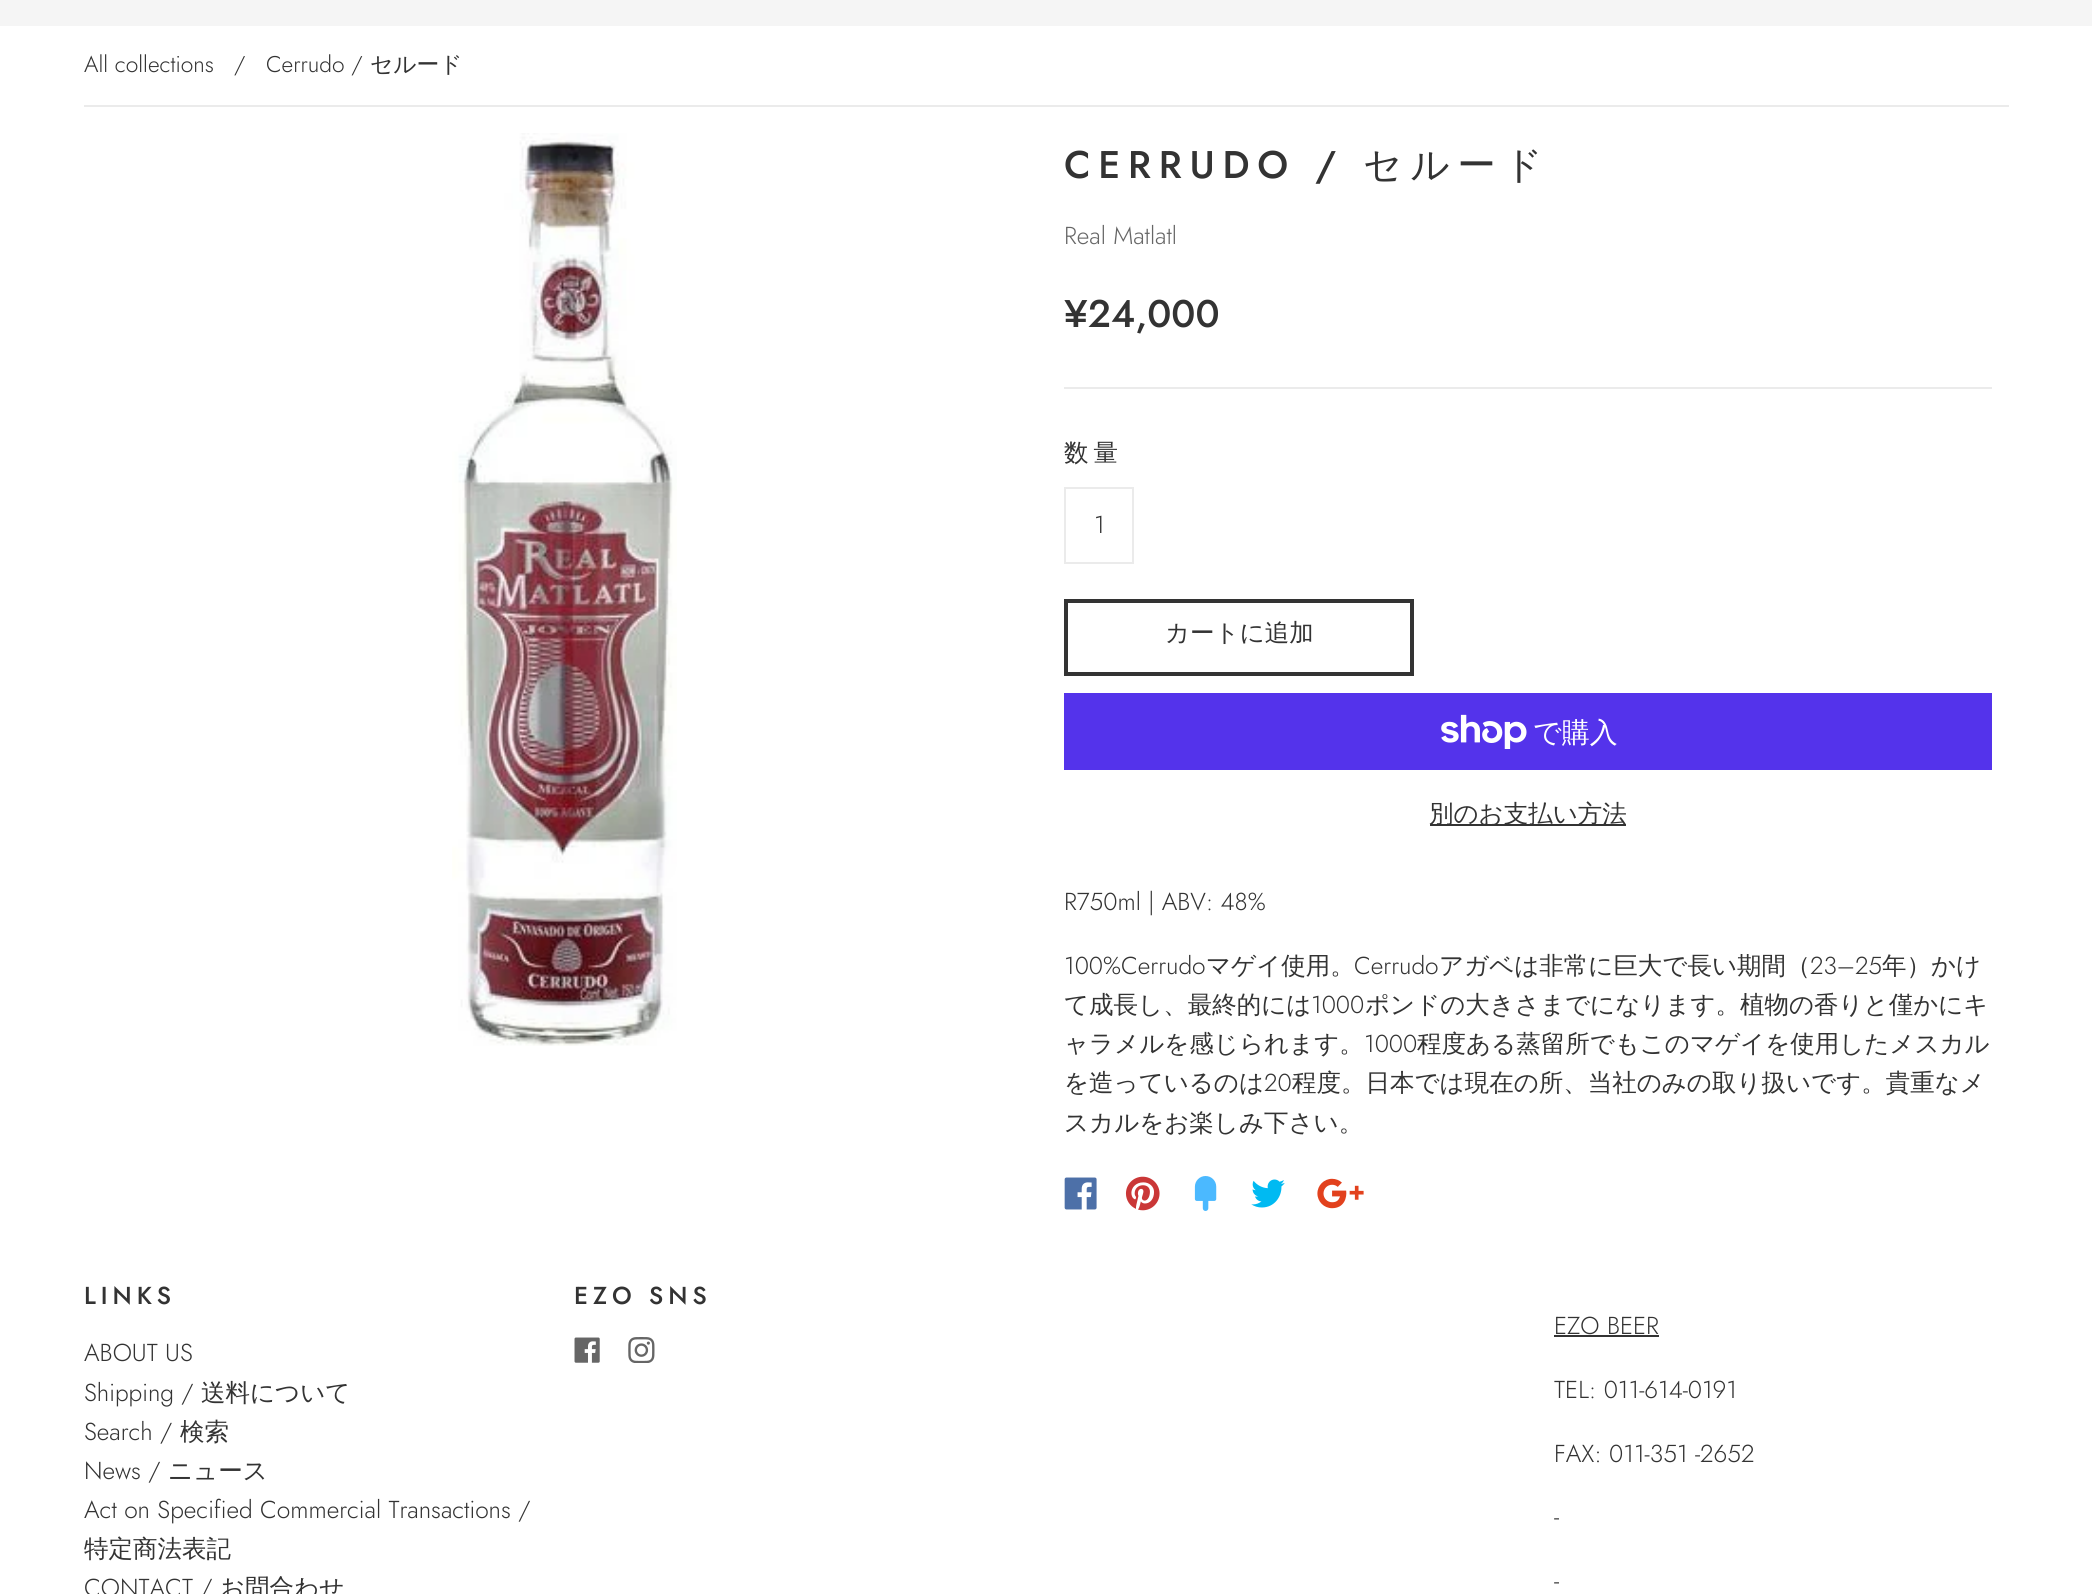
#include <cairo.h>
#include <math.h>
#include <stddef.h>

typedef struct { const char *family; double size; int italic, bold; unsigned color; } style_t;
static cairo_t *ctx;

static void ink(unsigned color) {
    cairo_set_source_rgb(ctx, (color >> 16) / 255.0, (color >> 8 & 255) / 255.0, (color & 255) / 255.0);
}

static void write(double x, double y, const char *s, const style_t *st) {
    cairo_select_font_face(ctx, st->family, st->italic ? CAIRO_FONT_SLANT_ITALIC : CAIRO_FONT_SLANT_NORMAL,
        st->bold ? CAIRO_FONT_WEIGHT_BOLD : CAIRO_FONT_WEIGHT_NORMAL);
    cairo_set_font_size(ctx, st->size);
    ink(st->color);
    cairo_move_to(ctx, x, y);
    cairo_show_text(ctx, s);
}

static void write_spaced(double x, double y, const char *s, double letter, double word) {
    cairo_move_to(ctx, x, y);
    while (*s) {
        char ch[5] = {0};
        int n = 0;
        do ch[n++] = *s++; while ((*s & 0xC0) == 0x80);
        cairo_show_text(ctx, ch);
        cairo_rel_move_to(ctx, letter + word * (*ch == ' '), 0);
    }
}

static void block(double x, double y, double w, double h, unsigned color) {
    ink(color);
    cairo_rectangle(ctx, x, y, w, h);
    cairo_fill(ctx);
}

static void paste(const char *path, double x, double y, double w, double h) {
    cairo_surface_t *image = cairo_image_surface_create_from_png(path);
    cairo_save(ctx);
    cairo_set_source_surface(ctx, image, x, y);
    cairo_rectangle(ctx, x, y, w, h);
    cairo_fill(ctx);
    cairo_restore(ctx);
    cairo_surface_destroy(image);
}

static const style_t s1 = {"Jost Light", 22.75, 0, 0, 0x333333};
static const style_t s2 = {"WenQuanYi Zen Hei Medium", 22.75, 0, 0, 0x333333};
static const style_t s3 = {"Jost Light", 24.5, 0, 0, 0x666666};
static const style_t s4 = {"Jost Medium", 38.5, 0, 0, 0x333333};
static const style_t s5 = {"Jost Light", 24.5, 0, 0, 0x333333};
static const style_t s6 = {"WenQuanYi Zen Hei Medium", 24.5, 0, 0, 0x333333};
static const style_t s7 = {"WenQuanYi Zen Hei Medium", 28, 0, 0, 0xffffff};

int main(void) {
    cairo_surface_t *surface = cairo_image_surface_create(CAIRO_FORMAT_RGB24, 2092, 1594);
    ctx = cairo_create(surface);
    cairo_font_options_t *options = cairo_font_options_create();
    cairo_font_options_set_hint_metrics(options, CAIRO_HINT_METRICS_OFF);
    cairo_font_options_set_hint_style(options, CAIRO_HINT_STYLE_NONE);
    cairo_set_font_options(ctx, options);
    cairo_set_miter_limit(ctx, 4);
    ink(0xffffff);
    cairo_paint(ctx);
    block(0, 0, 2092, 26, 0xf5f5f5);
    block(84, 105, 1925, 2, 0xebebeb);
    write(84, 72, "All collections", &s1);
    write(234, 72, "/", &s1);
    write(266, 72, "Cerrudo /", &s1);
    write(370, 72, "セルード", &s2);
    paste("pic1.png", 452, 133, 225, 913);
    block(1064, 387, 928, 2, 0xebebeb);
    cairo_select_font_face(ctx, "Jost Medium", CAIRO_FONT_SLANT_NORMAL, CAIRO_FONT_WEIGHT_NORMAL);
    cairo_set_font_size(ctx, 38.5);
    ink(0x333333);
    write_spaced(1064, 178, "CERRUDO /", 7.75, 0);
    cairo_select_font_face(ctx, "WenQuanYi Zen Hei Medium", CAIRO_FONT_SLANT_NORMAL, CAIRO_FONT_WEIGHT_NORMAL);
    write_spaced(1363, 178, "セルード", 7.75, 0);
    write(1064, 244, "Real Matlatl", &s3);
    write(1064, 327, "¥24,000", &s4);
    cairo_select_font_face(ctx, "WenQuanYi Zen Hei Medium", CAIRO_FONT_SLANT_NORMAL, CAIRO_FONT_WEIGHT_NORMAL);
    cairo_set_font_size(ctx, 24.5);
    write_spaced(1064, 461, "数量", 5, 0);
    cairo_rectangle(ctx, 1065, 488, 68, 75);
    ink(0xebebeb);
    cairo_stroke(ctx);
    write(1094, 533, "1", &s5);
    cairo_rectangle(ctx, 1066, 601, 346, 73);
    cairo_set_line_width(ctx, 4);
    cairo_stroke(ctx);
    write(1165, 641, "カートに追加", &s6);
    block(1064, 693, 928, 77, 0x5433eb);
    paste("pic2.png", 1441, 714, 86, 35);
    write(1533, 742, "で購入", &s7);
    block(1430, 824, 196, 2, 0x333333);
    write(1429, 822, "別のお支払い方法", &s6);
    write(1064, 910, "R750ml | ABV: 48%", &s5);
    write(1064, 974, "100%Cerrudo", &s5);
    write(1206, 974, "マゲイ使用。", &s6);
    write(1354, 974, "Cerrudo", &s5);
    write(1439, 974, "アガベは非常に巨大で長い期間（", &s6);
    write(1810, 974, "23–25", &s5);
    write(1882, 974, "年）かけ", &s6);
    write(1064, 1013, "て成長し、最終的には", &s6);
    write(1311, 1013, "1000", &s5);
    write(1365, 1013, "ポンドの大きさまでになります。植物の香りと僅かにキ", &s6);
    write(1064, 1052, "ャラメルを感じられます。", &s6);
    write(1364, 1052, "1000", &s5);
    write(1417, 1052, "程度ある蒸留所でもこのマゲイを使用したメスカル", &s6);
    write(1064, 1091, "を造っているのは", &s6);
    write(1264, 1091, "20", &s5);
    write(1292, 1091, "程度。日本では現在の所、当社のみの取り扱いです。貴重なメ", &s6);
    write(1064, 1131, "スカルをお楽しみ下さい。", &s6);
    paste("pic3.png", 1064, 1177, 33, 33);
    paste("pic4.png", 1125, 1176, 35, 35);
    paste("pic5.png", 1194, 1176, 23, 35);
    paste("pic6.png", 1251, 1179, 34, 29);
    paste("pic7.png", 1317, 1178, 47, 31);
    cairo_select_font_face(ctx, "Jost Medium", CAIRO_FONT_SLANT_NORMAL, CAIRO_FONT_WEIGHT_NORMAL);
    write_spaced(84, 1304, "LINKS", 5, 0);
    write(84, 1361, "ABOUT US", &s5);
    write(84, 1401, "Shipping /", &s5);
    write(201, 1401, "送料について", &s6);
    write(84, 1440, "Search /", &s5);
    write(180, 1440, "検索", &s6);
    write(84, 1479, "News /", &s5);
    write(168, 1479, "ニュース", &s6);
    write(84, 1518, "Act on Specified Commercial Transactions /", &s5);
    write(84, 1557, "特定商法表記", &s6);
    write(84, 1596, "CONTACT /", &s5);
    write(220, 1596, "お問合わせ", &s6);
    cairo_select_font_face(ctx, "Jost Medium", CAIRO_FONT_SLANT_NORMAL, CAIRO_FONT_WEIGHT_NORMAL);
    write_spaced(574, 1304, "EZO SNS", 5, 0);
    paste("pic8.png", 574, 1337, 26, 26);
    paste("pic9.png", 628, 1337, 27, 26);
    write(1554, 1334, "EZO BEER", &s5);
    block(1554, 1335, 105, 2, 0x333333);
    write(1554, 1398, "TEL: 011-614-0191", &s5);
    write(1554, 1462, "FAX: 011-351 -2652", &s5);
    write(1554, 1525, "-", &s5);
    write(1554, 1589, "-", &s5);
    cairo_surface_write_to_png(surface, "screenshot.png");
    cairo_font_options_destroy(options);
    cairo_destroy(ctx);
    cairo_surface_destroy(surface);
    return 0;
}
